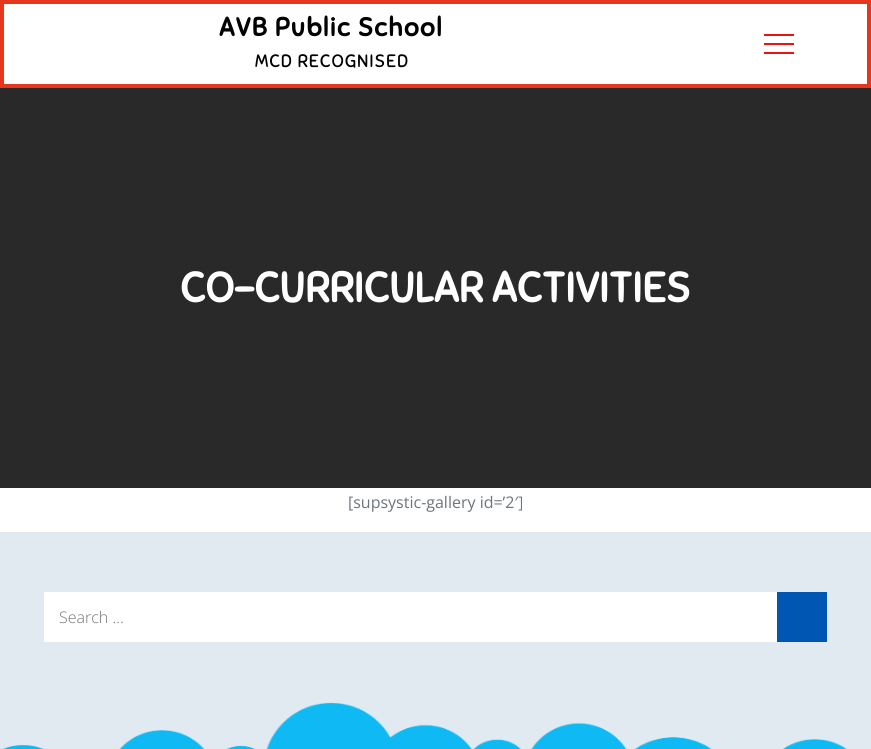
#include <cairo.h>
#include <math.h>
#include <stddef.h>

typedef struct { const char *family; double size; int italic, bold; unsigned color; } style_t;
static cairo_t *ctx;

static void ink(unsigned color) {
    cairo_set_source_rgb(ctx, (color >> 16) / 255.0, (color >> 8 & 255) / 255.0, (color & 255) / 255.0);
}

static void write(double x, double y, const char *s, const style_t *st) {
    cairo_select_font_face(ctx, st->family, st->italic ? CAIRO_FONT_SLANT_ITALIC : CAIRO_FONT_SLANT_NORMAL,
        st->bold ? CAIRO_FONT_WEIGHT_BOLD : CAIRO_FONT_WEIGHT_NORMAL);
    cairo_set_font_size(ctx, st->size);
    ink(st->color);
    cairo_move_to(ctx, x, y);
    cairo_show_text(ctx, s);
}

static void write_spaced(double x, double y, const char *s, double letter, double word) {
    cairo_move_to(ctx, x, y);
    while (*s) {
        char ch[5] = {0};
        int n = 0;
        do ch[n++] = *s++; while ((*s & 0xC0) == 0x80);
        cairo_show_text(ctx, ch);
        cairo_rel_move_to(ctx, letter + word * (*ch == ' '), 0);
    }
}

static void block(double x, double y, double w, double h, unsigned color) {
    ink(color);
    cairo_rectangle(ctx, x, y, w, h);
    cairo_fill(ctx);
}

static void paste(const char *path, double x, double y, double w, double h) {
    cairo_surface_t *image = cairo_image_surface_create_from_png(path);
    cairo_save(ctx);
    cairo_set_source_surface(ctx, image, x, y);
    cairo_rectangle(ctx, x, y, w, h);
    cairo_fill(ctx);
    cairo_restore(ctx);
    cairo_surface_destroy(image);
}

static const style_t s1 = {"Sniglet", 42, 0, 1, 0xffffff};
static const style_t s2 = {"Open Sans", 16, 0, 0, 0x6c757d};
static const style_t s3 = {"Open Sans Light", 16, 0, 0, 0x757575};

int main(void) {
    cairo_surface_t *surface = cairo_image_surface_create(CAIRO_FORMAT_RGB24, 871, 749);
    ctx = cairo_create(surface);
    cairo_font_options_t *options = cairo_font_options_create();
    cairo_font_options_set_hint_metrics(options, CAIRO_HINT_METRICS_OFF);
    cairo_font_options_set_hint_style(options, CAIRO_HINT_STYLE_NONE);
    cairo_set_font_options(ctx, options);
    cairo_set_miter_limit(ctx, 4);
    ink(0xffffff);
    cairo_paint(ctx);
    cairo_rectangle(ctx, 2, 2, 867, 84);
    ink(0xe6371c);
    cairo_set_line_width(ctx, 4);
    cairo_stroke(ctx);
    cairo_select_font_face(ctx, "Sniglet", CAIRO_FONT_SLANT_NORMAL, CAIRO_FONT_WEIGHT_BOLD);
    cairo_set_font_size(ctx, 26);
    ink(0x000000);
    write_spaced(219, 36, "AVB Public School", 1.25, 0);
    cairo_select_font_face(ctx, "Sniglet", CAIRO_FONT_SLANT_NORMAL, CAIRO_FONT_WEIGHT_NORMAL);
    cairo_set_font_size(ctx, 18);
    write_spaced(255, 67, "MCD RECOGNISED", 0.9, 0);
    block(764, 34, 30, 2, 0xeb1212);
    block(764, 43, 30, 2, 0xeb1212);
    block(764, 52, 30, 2, 0xeb1212);
    block(0, 88, 871, 400, 0x292929);
    write(180, 302, "CO-CURRICULAR ACTIVITIES", &s1);
    write(348, 508, "[supsystic-gallery id=’2′]", &s2);
    block(0, 532, 871, 217, 0xe2eaf1);
    block(44, 592, 733, 50, 0xffffff);
    write(59, 623, "Search ...", &s3);
    block(777, 592, 50, 50, 0x0056b3);
    paste("pic1.png", 1, 702, 847, 47);
    cairo_surface_write_to_png(surface, "screenshot.png");
    cairo_font_options_destroy(options);
    cairo_destroy(ctx);
    cairo_surface_destroy(surface);
    return 0;
}
